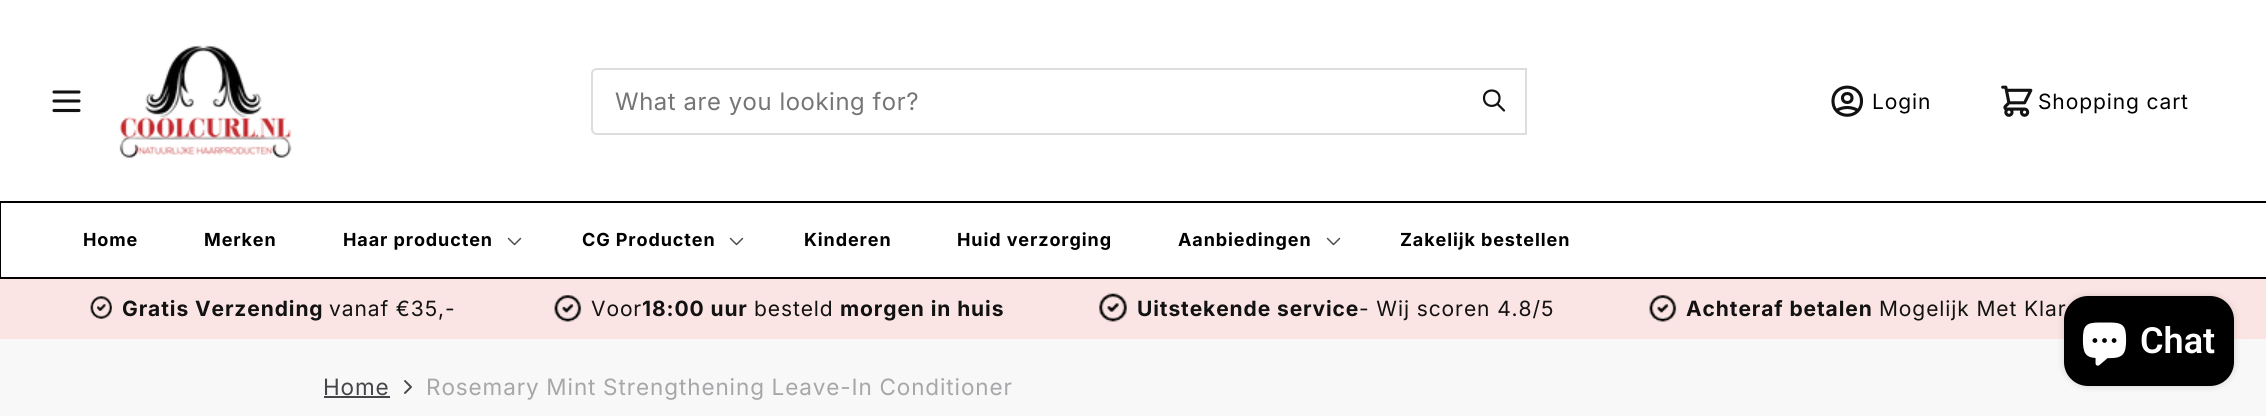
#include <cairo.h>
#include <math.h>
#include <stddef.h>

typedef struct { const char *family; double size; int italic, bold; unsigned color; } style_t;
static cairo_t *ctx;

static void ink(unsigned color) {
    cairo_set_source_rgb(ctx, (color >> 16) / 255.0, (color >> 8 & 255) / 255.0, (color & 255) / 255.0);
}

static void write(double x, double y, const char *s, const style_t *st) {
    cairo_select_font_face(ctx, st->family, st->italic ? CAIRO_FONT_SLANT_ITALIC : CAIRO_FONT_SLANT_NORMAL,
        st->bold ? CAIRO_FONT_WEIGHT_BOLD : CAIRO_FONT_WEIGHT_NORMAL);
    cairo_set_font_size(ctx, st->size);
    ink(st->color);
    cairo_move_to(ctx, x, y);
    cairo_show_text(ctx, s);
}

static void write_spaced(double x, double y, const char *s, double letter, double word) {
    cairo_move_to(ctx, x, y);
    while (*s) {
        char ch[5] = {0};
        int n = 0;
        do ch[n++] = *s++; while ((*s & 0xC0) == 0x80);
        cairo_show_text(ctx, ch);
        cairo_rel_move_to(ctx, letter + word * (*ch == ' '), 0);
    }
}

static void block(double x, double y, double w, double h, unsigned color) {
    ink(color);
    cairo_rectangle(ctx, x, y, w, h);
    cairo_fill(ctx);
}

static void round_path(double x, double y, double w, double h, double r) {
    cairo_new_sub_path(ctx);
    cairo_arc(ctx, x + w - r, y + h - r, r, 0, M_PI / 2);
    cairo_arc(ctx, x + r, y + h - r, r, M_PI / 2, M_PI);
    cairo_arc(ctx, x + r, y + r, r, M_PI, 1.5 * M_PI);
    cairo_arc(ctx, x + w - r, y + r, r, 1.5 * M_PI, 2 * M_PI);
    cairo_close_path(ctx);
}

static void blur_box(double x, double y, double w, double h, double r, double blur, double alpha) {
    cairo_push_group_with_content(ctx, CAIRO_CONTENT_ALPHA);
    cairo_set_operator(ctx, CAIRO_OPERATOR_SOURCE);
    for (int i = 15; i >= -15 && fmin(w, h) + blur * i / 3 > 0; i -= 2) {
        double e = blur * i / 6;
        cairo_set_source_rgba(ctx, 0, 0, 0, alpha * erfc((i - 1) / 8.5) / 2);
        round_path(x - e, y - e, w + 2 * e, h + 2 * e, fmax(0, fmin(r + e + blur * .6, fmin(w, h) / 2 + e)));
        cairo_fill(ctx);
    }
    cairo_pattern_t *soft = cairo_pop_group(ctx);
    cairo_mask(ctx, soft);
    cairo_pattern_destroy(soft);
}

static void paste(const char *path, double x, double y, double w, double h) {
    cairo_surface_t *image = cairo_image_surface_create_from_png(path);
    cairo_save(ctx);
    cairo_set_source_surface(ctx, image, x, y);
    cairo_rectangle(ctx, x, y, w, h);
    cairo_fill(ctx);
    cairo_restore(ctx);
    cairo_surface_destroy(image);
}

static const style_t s1 = {"Roboto SemiBold", 36, 0, 0, 0xffffff};

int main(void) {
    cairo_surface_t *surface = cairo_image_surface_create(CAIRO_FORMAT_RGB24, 2266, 416);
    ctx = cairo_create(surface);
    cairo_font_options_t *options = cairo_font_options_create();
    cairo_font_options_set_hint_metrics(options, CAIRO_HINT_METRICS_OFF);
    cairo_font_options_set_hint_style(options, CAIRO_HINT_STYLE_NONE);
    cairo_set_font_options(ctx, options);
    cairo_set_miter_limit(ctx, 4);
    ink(0xffffff);
    cairo_paint(ctx);
    cairo_new_path(ctx);
    cairo_move_to(ctx, 54, 92);
    cairo_line_to(ctx, 79, 92);
    cairo_move_to(ctx, 54, 101);
    cairo_line_to(ctx, 79, 101);
    cairo_move_to(ctx, 54, 110.5);
    cairo_line_to(ctx, 79, 110.5);
    ink(0x121212);
    cairo_set_line_width(ctx, 3.1);
    cairo_set_line_cap(ctx, CAIRO_LINE_CAP_ROUND);
    cairo_set_line_join(ctx, CAIRO_LINE_JOIN_ROUND);
    cairo_stroke(ctx);
    paste("pic1.png", 119, 45, 173, 113);
    cairo_new_path(ctx);
    cairo_move_to(ctx, 597, 69);
    cairo_line_to(ctx, 1526, 69);
    cairo_line_to(ctx, 1526, 134);
    cairo_line_to(ctx, 597, 134);
    cairo_curve_to(ctx, 594, 134, 592, 132, 592, 129);
    cairo_line_to(ctx, 592, 74);
    cairo_curve_to(ctx, 592, 71, 594, 69, 597, 69);
    cairo_close_path(ctx);
    ink(0xdddddd);
    cairo_set_line_width(ctx, 2);
    cairo_set_line_cap(ctx, CAIRO_LINE_CAP_BUTT);
    cairo_set_line_join(ctx, CAIRO_LINE_JOIN_MITER);
    cairo_stroke(ctx);
    cairo_select_font_face(ctx, "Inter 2", CAIRO_FONT_SLANT_NORMAL, CAIRO_FONT_WEIGHT_NORMAL);
    cairo_set_font_size(ctx, 24);
    ink(0x757575);
    write_spaced(615, 110, "What are you looking for?", 0.6, 0);
    cairo_new_path(ctx);
    cairo_move_to(ctx, 1504, 110.5);
    cairo_line_to(ctx, 1497.5, 104);
    cairo_move_to(ctx, 1499.5, 98);
    cairo_curve_to(ctx, 1499.5, 108.5, 1484, 108.5, 1484, 98);
    cairo_curve_to(ctx, 1484, 88, 1499.5, 88, 1499.5, 98);
    cairo_close_path(ctx);
    ink(0x121212);
    cairo_set_line_width(ctx, 2.2);
    cairo_set_line_cap(ctx, CAIRO_LINE_CAP_ROUND);
    cairo_set_line_join(ctx, CAIRO_LINE_JOIN_ROUND);
    cairo_stroke(ctx);
    cairo_new_path(ctx);
    cairo_move_to(ctx, 1836.5, 110.5);
    cairo_curve_to(ctx, 1843, 106.5, 1851.5, 106.5, 1858, 110.5);
    cairo_move_to(ctx, 1852, 98);
    cairo_curve_to(ctx, 1852, 104, 1842.5, 104, 1842.5, 98);
    cairo_curve_to(ctx, 1842.5, 92, 1852, 92, 1852, 98);
    cairo_close_path(ctx);
    cairo_move_to(ctx, 1861.5, 101);
    cairo_curve_to(ctx, 1861.5, 120, 1833, 120, 1833, 101);
    cairo_curve_to(ctx, 1833, 82.5, 1861.5, 82.5, 1861.5, 101);
    cairo_close_path(ctx);
    cairo_set_line_width(ctx, 3.1);
    cairo_stroke(ctx);
    cairo_select_font_face(ctx, "Inter", CAIRO_FONT_SLANT_NORMAL, CAIRO_FONT_WEIGHT_NORMAL);
    cairo_set_font_size(ctx, 21);
    ink(0x000000);
    write_spaced(1872, 109, "Login", 0.9, 0);
    paste("pic2.png", 2001, 85, 32, 32);
    write_spaced(2038, 109, "Shopping cart", 0.9, 0);
    cairo_rectangle(ctx, 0, 202, 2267, 76);
    cairo_set_line_width(ctx, 2);
    cairo_set_line_cap(ctx, CAIRO_LINE_CAP_BUTT);
    cairo_set_line_join(ctx, CAIRO_LINE_JOIN_MITER);
    cairo_stroke(ctx);
    cairo_select_font_face(ctx, "Inter", CAIRO_FONT_SLANT_NORMAL, CAIRO_FONT_WEIGHT_BOLD);
    cairo_set_font_size(ctx, 18);
    write_spaced(83, 246, "Home", 0.9, 0);
    write_spaced(204, 246, "Merken", 0.9, 0);
    write_spaced(343, 246, "Haar producten", 0.9, 0);
    paste("pic3.png", 507, 237, 15, 9);
    write_spaced(582, 246, "CG Producten", 0.9, 0);
    paste("pic3.png", 729, 237, 15, 9);
    write_spaced(804, 246, "Kinderen", 0.9, 0);
    write_spaced(957, 246, "Huid verzorging", 0.9, 0);
    write_spaced(1178, 246, "Aanbiedingen", 0.9, 0);
    paste("pic3.png", 1326, 237, 15, 9);
    write_spaced(1400, 246, "Zakelijk bestellen", 0.9, 0);
    block(0, 279, 2266, 60, 0xfbe5e4);
    paste("pic4.png", 90, 296, 22, 23);
    cairo_set_font_size(ctx, 21);
    ink(0x121212);
    write_spaced(122, 316, "Gratis Verzending", 0.9, 0);
    cairo_select_font_face(ctx, "Inter", CAIRO_FONT_SLANT_NORMAL, CAIRO_FONT_WEIGHT_NORMAL);
    write_spaced(329, 316, "vanaf €35,-", 0.9, 0);
    paste("pic5.png", 554, 295, 28, 27);
    write_spaced(591, 316, "Voor", 0.9, 0);
    cairo_select_font_face(ctx, "Inter", CAIRO_FONT_SLANT_NORMAL, CAIRO_FONT_WEIGHT_BOLD);
    write_spaced(642, 316, "18:00 uur", 0.9, 0);
    cairo_select_font_face(ctx, "Inter", CAIRO_FONT_SLANT_NORMAL, CAIRO_FONT_WEIGHT_NORMAL);
    write_spaced(754, 316, "besteld", 0.9, 0);
    cairo_select_font_face(ctx, "Inter", CAIRO_FONT_SLANT_NORMAL, CAIRO_FONT_WEIGHT_BOLD);
    write_spaced(840, 316, "morgen in huis", 0.9, 0);
    paste("pic6.png", 1099, 293, 28, 29);
    write_spaced(1137, 316, "Uitstekende service", 0.9, 0);
    cairo_select_font_face(ctx, "Inter", CAIRO_FONT_SLANT_NORMAL, CAIRO_FONT_WEIGHT_NORMAL);
    write_spaced(1359, 316, "- Wij scoren 4.8/5", 0.9, 0);
    paste("pic5.png", 1649, 295, 28, 27);
    cairo_select_font_face(ctx, "Inter", CAIRO_FONT_SLANT_NORMAL, CAIRO_FONT_WEIGHT_BOLD);
    write_spaced(1686, 316, "Achteraf betalen", 0.9, 0);
    cairo_select_font_face(ctx, "Inter", CAIRO_FONT_SLANT_NORMAL, CAIRO_FONT_WEIGHT_NORMAL);
    write_spaced(1879, 316, "Mogelijk Met Klar", 0.9, 0);
    block(0, 339, 2266, 77, 0xf8f8f8);
    ink(0x000000);
    blur_box(2064, 296, 170, 90, 24, 4, 0.15);
    ink(0x000000);
    round_path(2064, 296, 170, 90, 24);
    cairo_fill(ctx);
    paste("pic7.png", 2082, 322, 45, 44);
    write(2140, 353, "Chat", &s1);
    cairo_select_font_face(ctx, "Inter", CAIRO_FONT_SLANT_NORMAL, CAIRO_FONT_WEIGHT_NORMAL);
    cairo_set_font_size(ctx, 22.5);
    ink(0x45454b);
    write_spaced(323, 395, "Home", 0.9, 0);
    block(324, 396, 66, 2, 0x45454b);
    cairo_new_path(ctx);
    cairo_move_to(ctx, 405, 393);
    cairo_line_to(ctx, 411, 387);
    cairo_line_to(ctx, 405, 381);
    cairo_set_line_width(ctx, 1.9);
    cairo_set_line_cap(ctx, CAIRO_LINE_CAP_ROUND);
    cairo_set_line_join(ctx, CAIRO_LINE_JOIN_ROUND);
    cairo_stroke(ctx);
    ink(0xa7a7aa);
    write_spaced(426, 395, "Rosemary Mint Strengthening Leave-In Conditioner", 0.9, -0.5);
    cairo_surface_write_to_png(surface, "screenshot.png");
    cairo_font_options_destroy(options);
    cairo_destroy(ctx);
    cairo_surface_destroy(surface);
    return 0;
}
